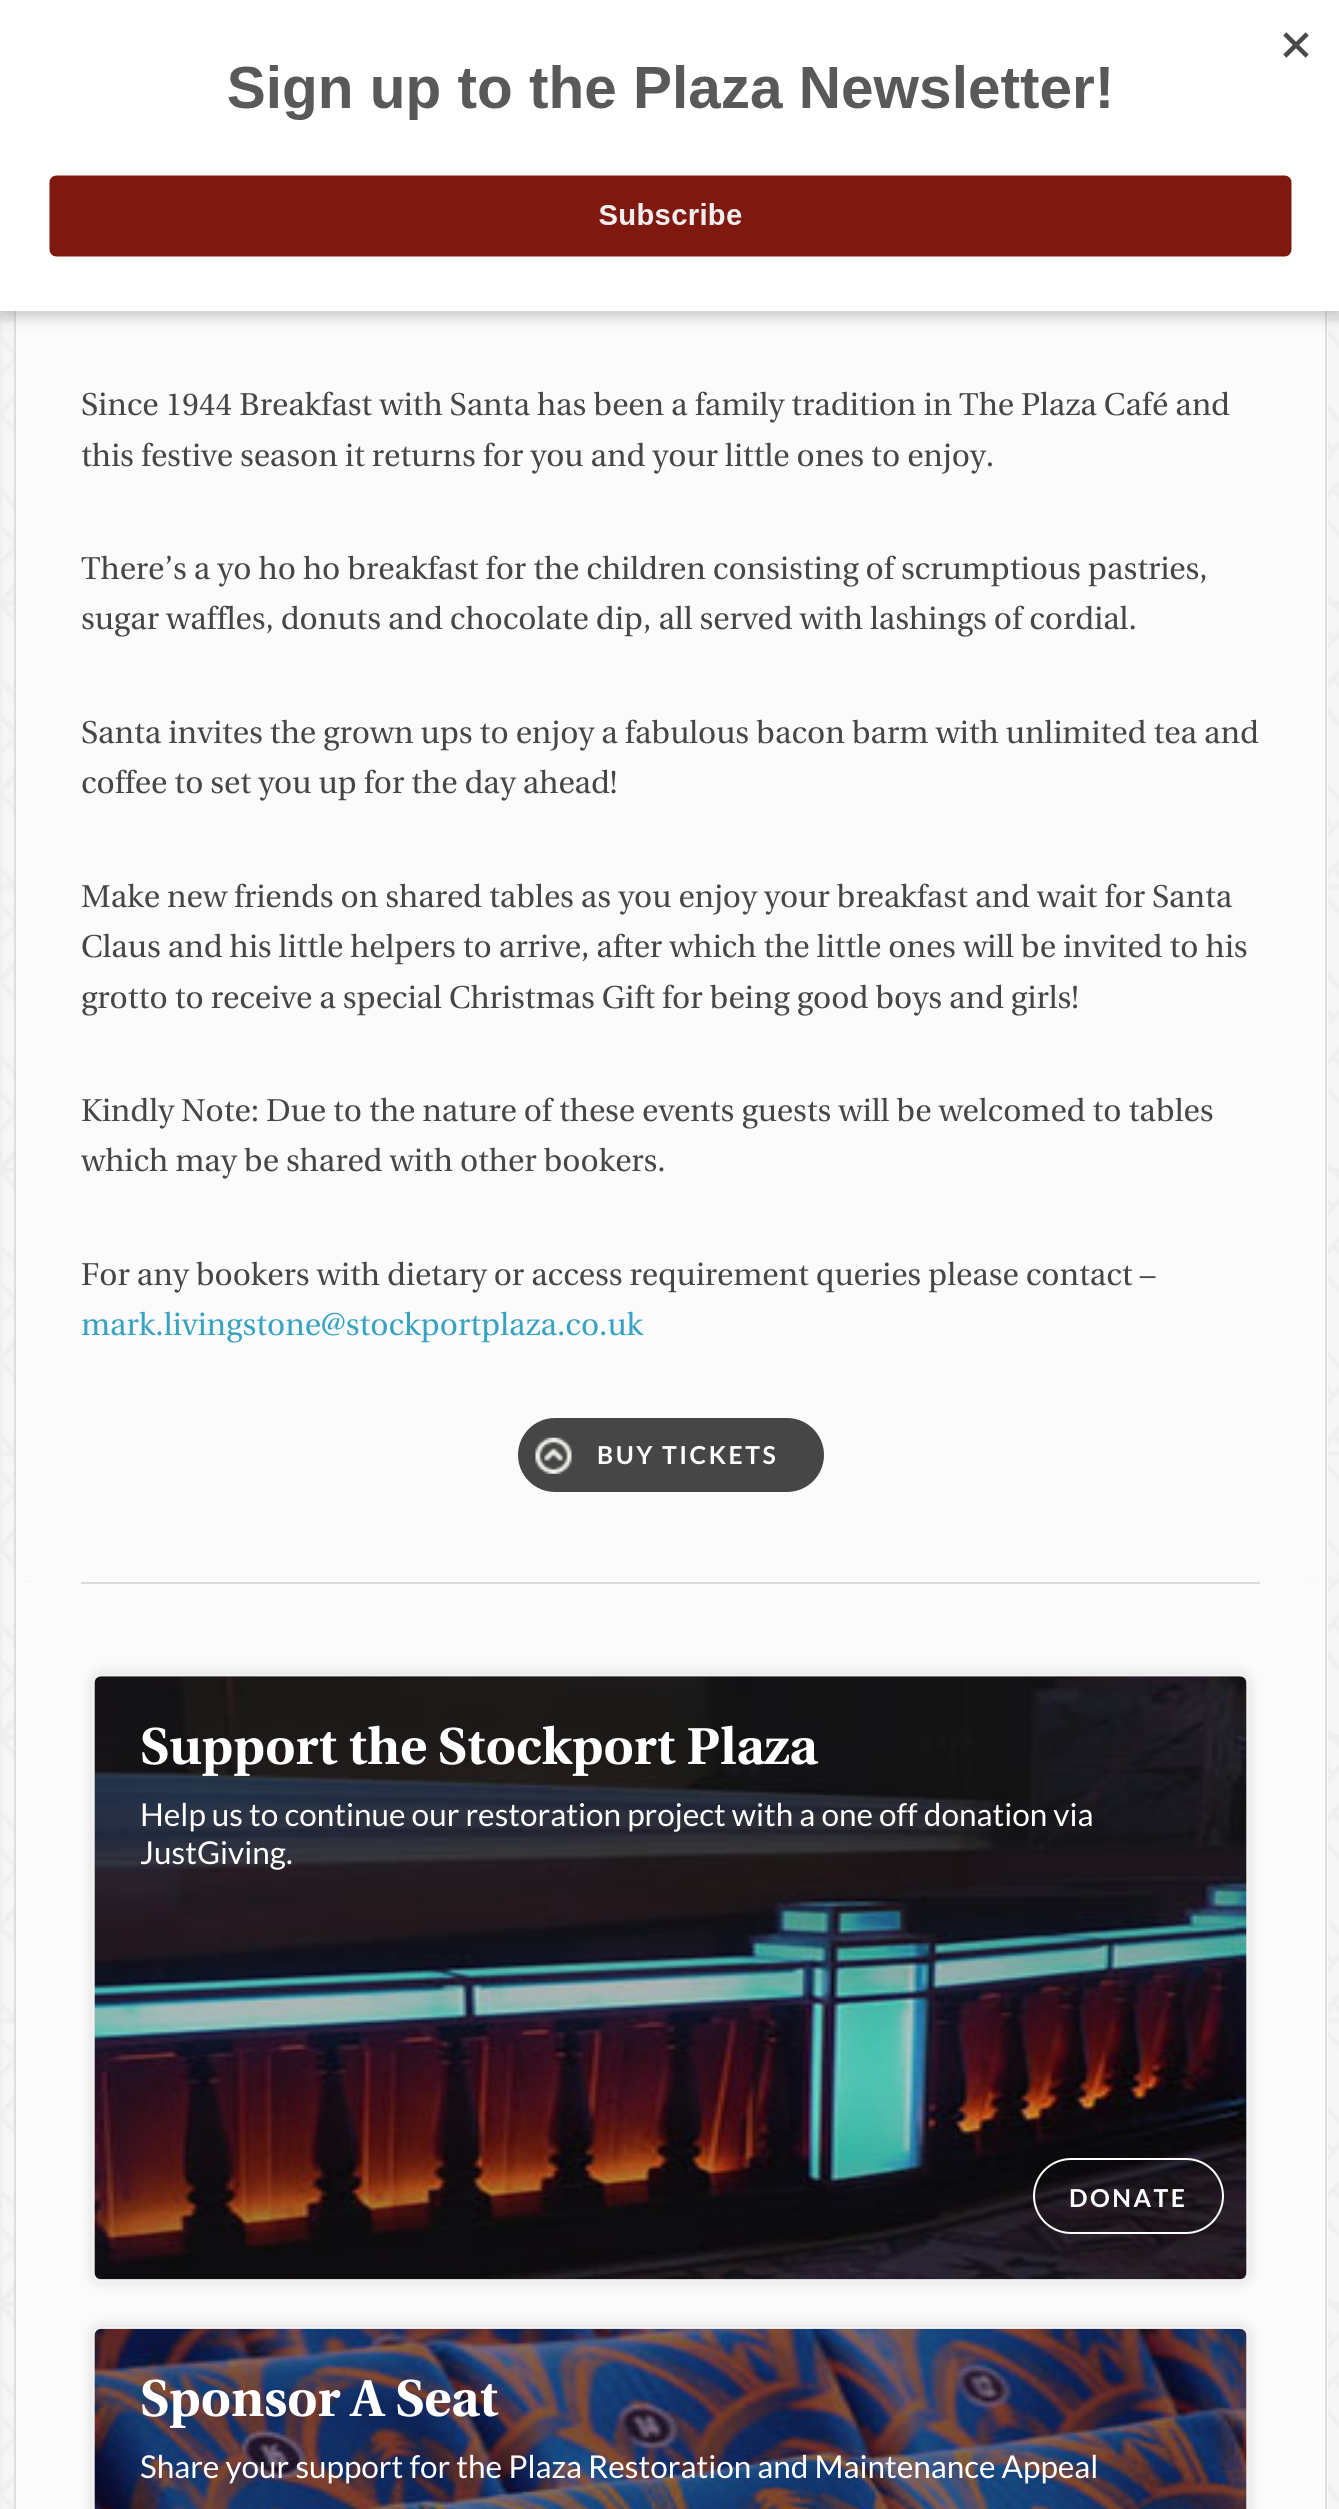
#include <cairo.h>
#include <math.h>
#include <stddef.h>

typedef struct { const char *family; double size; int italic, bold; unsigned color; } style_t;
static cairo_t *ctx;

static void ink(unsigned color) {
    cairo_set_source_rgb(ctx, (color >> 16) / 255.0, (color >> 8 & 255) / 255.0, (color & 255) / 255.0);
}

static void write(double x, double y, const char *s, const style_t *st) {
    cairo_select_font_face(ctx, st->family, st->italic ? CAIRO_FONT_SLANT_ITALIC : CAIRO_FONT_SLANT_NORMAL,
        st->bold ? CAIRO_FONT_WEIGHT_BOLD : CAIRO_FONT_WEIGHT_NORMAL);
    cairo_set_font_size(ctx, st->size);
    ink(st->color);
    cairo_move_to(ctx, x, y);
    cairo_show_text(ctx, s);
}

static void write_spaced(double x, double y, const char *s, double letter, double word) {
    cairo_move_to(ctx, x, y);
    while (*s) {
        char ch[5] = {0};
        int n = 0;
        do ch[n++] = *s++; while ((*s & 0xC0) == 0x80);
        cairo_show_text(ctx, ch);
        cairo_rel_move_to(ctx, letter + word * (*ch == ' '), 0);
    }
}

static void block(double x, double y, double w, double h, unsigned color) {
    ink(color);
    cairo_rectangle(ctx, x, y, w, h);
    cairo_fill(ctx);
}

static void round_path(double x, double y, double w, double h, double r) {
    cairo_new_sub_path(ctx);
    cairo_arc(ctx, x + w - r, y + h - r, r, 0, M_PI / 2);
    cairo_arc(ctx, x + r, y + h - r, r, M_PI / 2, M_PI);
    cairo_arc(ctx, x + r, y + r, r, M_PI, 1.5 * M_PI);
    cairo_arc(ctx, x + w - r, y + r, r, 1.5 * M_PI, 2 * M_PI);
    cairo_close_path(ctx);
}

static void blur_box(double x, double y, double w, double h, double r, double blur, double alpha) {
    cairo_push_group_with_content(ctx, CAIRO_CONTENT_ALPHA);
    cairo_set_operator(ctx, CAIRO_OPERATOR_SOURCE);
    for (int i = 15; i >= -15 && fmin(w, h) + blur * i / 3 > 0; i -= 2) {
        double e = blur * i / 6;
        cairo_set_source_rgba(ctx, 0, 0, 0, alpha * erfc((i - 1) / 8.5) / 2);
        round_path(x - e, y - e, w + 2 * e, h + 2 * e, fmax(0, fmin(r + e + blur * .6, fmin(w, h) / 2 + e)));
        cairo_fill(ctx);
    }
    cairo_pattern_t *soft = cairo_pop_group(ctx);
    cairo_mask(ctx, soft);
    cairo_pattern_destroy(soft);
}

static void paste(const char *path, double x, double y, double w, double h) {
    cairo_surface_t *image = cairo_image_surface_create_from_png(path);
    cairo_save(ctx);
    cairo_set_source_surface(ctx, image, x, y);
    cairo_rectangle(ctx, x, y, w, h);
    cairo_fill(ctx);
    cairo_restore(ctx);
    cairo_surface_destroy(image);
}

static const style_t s1 = {"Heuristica", 31.5, 0, 0, 0x464646};
static const style_t s2 = {"Heuristica", 31.5, 0, 0, 0x38a2c1};
static const style_t s3 = {"Heuristica", 51.75, 0, 1, 0xffffff};
static const style_t s4 = {"Lato", 31.5, 0, 0, 0xffffff};

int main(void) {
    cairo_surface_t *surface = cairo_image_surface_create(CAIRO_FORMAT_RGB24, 1339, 2509);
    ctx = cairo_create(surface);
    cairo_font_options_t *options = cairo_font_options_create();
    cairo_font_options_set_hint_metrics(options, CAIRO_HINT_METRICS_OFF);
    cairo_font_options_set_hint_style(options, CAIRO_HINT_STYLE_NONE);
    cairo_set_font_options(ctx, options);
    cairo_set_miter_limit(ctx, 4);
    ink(0xffffff);
    cairo_paint(ctx);
    paste("pic1.png", 0, 311, 1339, 2198);
    block(16, 311, 1312, 2198, 0xfbfbfb);
    block(1325, 311, 2, 2198, 0xdddddd);
    block(14, 311, 2, 2198, 0xdddddd);
    ink(0x000000);
    blur_box(0, 7, 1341, 310, 0, 7, 0.2);
    block(0, 0, 1339, 311, 0xffffff);
    paste("pic2.png", 49, 32, 1260, 225);
    write(81, 415, "Since 1944 Breakfast with Santa has been a family tradition in The Plaza Café and", &s1);
    write(81, 466, "this festive season it returns for you and your little ones to enjoy.", &s1);
    write(81, 579, "There’s a yo ho ho breakfast for the children consisting of scrumptious pastries,", &s1);
    write(81, 629, "sugar waffles, donuts and chocolate dip, all served with lashings of cordial.", &s1);
    write(81, 743, "Santa invites the grown ups to enjoy a fabulous bacon barm with unlimited tea and", &s1);
    write(81, 793, "coffee to set you up for the day ahead!", &s1);
    write(81, 907, "Make new friends on shared tables as you enjoy your breakfast and wait for Santa", &s1);
    write(81, 957, "Claus and his little helpers to arrive, after which the little ones will be invited to his", &s1);
    write(81, 1008, "grotto to receive a special Christmas Gift for being good boys and girls!", &s1);
    write(81, 1121, "Kindly Note: Due to the nature of these events guests will be welcomed to tables", &s1);
    write(81, 1171, "which may be shared with other bookers.", &s1);
    write(81, 1285, "For any bookers with dietary or access requirement queries please contact –", &s1);
    write(81, 1335, "mark.livingstone@stockportplaza.co.uk", &s2);
    ink(0x464646);
    round_path(518, 1418, 306, 74, 37);
    cairo_fill(ctx);
    paste("pic3.png", 535, 1437, 37, 37);
    cairo_select_font_face(ctx, "Lato", CAIRO_FONT_SLANT_NORMAL, CAIRO_FONT_WEIGHT_BOLD);
    cairo_set_font_size(ctx, 24.75);
    ink(0xffffff);
    write_spaced(597, 1464, "BUY TICKETS", 2.5, 0);
    paste("pic4.png", 25, 1581, 1291, 1);
    block(81, 1582, 1179, 2, 0xdbdbdb);
    ink(0x000000);
    blur_box(90, 1672, 1161, 612, 11, 5.5, 0.1);
    round_path(93, 1675, 1155, 606, 8);
    ink(0xf1f1f1);
    cairo_stroke(ctx);
    paste("pic5.png", 94, 1676, 1153, 604);
    write(140, 1764, "Support the Stockport Plaza", &s3);
    write(140, 1826, "Help us to continue our restoration project with a one off donation via", &s4);
    write(140, 1864, "JustGiving.", &s4);
    round_path(1034, 2159, 189, 74, 37);
    cairo_stroke(ctx);
    cairo_select_font_face(ctx, "Lato", CAIRO_FONT_SLANT_NORMAL, CAIRO_FONT_WEIGHT_BOLD);
    cairo_set_font_size(ctx, 24.75);
    write_spaced(1069, 2207, "DONATE", 2.5, 0);
    ink(0x000000);
    blur_box(90, 2324, 1161, 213, 11, 5.5, 0.1);
    round_path(93, 2328, 1155, 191, 8);
    ink(0xf1f1f1);
    cairo_stroke(ctx);
    paste("pic6.png", 94, 2328, 1153, 181);
    write(140, 2416, "Sponsor A Seat", &s3);
    write(140, 2478, "Share your support for the Plaza Restoration and Maintenance Appeal", &s4);
    cairo_surface_write_to_png(surface, "screenshot.png");
    cairo_font_options_destroy(options);
    cairo_destroy(ctx);
    cairo_surface_destroy(surface);
    return 0;
}
